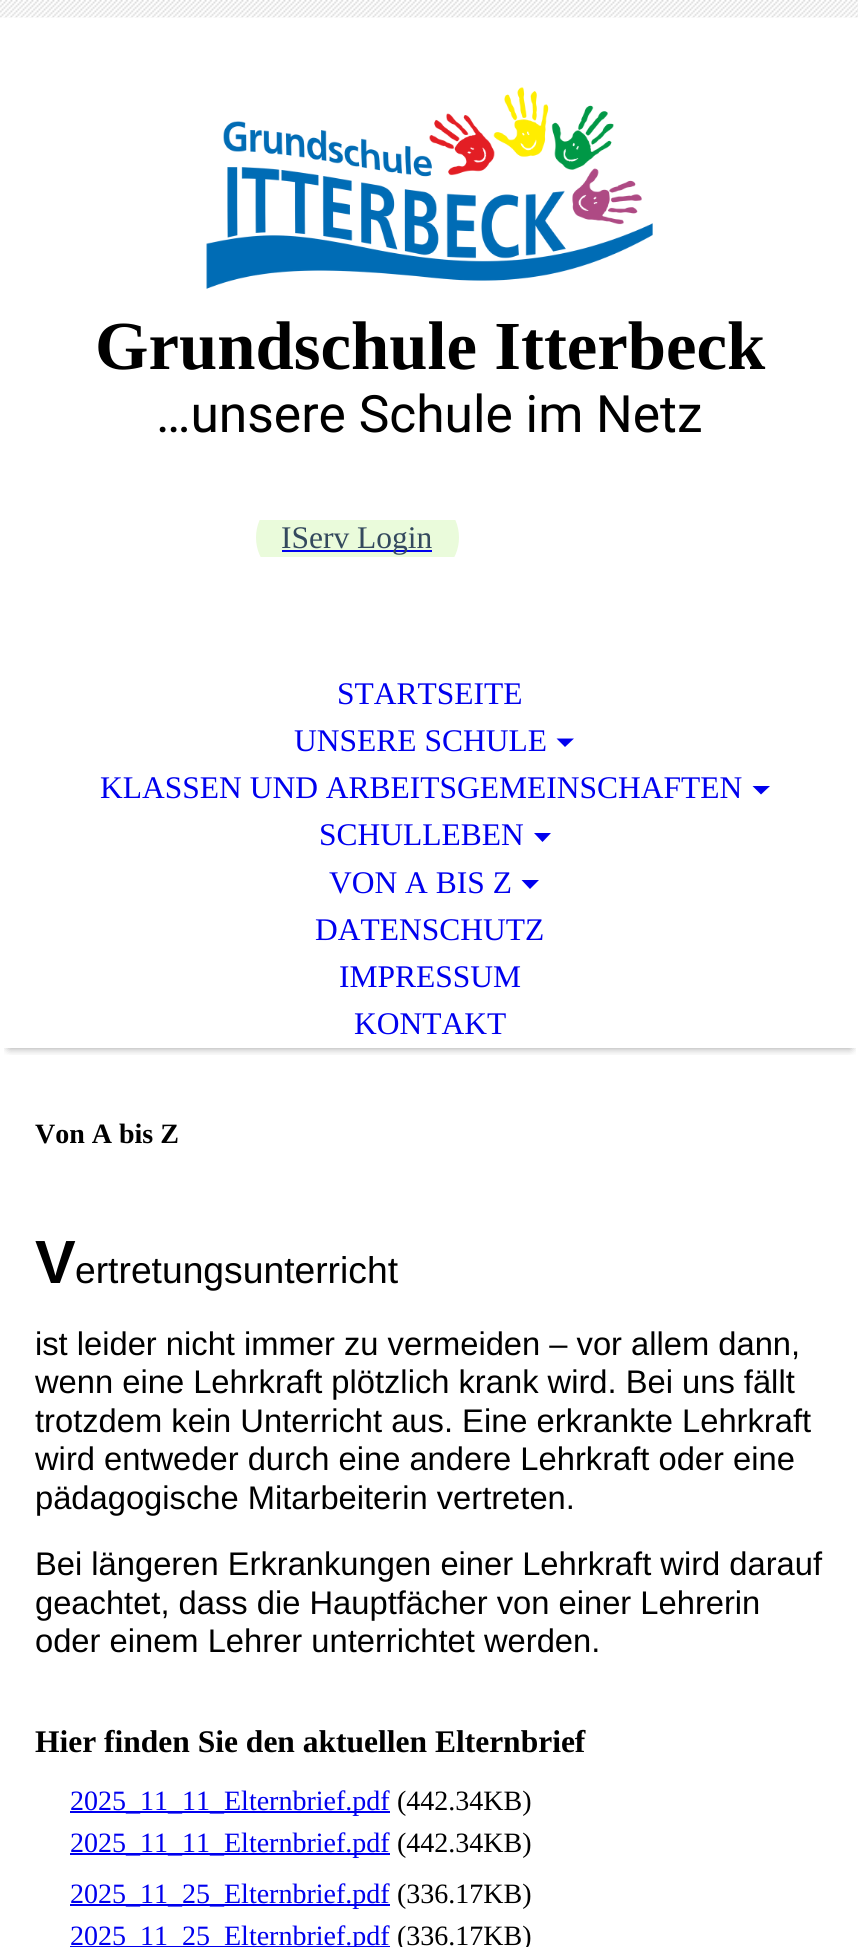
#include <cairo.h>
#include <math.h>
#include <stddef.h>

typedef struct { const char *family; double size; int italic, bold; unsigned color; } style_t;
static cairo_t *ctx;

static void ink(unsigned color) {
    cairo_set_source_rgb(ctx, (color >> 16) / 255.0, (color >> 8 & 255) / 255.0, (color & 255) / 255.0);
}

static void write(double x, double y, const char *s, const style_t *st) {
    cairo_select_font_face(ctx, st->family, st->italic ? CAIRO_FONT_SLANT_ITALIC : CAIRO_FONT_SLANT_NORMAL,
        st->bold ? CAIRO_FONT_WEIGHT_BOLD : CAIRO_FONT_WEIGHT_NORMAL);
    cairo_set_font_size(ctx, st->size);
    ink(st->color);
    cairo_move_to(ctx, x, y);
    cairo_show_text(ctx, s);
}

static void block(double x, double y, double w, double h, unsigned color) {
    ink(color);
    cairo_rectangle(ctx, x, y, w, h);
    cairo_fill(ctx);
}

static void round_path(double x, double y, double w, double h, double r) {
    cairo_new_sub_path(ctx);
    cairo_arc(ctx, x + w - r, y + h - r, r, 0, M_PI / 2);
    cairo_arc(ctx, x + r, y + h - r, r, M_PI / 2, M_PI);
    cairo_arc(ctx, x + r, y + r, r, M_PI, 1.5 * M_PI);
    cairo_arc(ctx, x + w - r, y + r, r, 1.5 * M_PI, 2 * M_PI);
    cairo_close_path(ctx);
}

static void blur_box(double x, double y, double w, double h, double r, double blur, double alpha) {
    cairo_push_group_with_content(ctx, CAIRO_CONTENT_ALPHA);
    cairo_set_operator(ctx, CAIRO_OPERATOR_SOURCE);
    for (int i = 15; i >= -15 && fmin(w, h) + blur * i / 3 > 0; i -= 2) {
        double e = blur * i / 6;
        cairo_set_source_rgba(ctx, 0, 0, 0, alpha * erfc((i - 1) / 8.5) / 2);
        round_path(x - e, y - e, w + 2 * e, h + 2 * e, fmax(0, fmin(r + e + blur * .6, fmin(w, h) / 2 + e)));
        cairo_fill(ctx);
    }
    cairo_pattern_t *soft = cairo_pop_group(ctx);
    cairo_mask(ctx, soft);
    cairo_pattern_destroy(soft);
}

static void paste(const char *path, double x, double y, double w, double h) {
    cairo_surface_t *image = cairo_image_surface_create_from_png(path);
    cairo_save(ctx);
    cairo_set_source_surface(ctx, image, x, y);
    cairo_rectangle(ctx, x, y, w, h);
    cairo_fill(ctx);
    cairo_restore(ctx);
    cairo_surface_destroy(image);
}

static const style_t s1 = {"Liberation Serif", 68.75, 0, 1, 0x000000};
static const style_t s2 = {"Roboto", 51.5, 0, 0, 0x000000};
static const style_t s3 = {"Liberation Serif", 31.5, 0, 0, 0x34495e};
static const style_t s4 = {"Liberation Serif", 31.5, 0, 0, 0x0000ee};
static const style_t s5 = {"Liberation Serif", 28, 0, 1, 0x000000};
static const style_t s6 = {"Liberation Sans", 61, 0, 1, 0x000000};
static const style_t s7 = {"Liberation Sans", 37.25, 0, 0, 0x000000};
static const style_t s8 = {"Liberation Sans", 32.7, 0, 0, 0x000000};
static const style_t s9 = {"Liberation Serif", 31.5, 0, 1, 0x000000};
static const style_t s10 = {"Liberation Serif", 28, 0, 0, 0x0000ee};
static const style_t s11 = {"Liberation Serif", 28, 0, 0, 0x000000};

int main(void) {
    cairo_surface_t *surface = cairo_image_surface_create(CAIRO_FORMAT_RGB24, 858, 1947);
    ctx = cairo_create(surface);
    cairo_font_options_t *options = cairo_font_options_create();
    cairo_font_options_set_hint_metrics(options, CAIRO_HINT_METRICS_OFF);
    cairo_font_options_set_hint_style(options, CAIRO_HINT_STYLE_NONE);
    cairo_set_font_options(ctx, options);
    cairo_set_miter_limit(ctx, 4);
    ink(0xffffff);
    cairo_paint(ctx);
    paste("pic1.png", 0, 0, 858, 18);
    paste("pic2.png", 206, 87, 447, 202);
    write(95, 369, "Grundschule Itterbeck", &s1);
    write(156, 432, "…unsere Schule im Netz", &s2);
    cairo_save(ctx);
    cairo_rectangle(ctx, 256, 520, 350, 37);
    cairo_clip(ctx);
    ink(0xeafbdb);
    round_path(256, 494, 203, 87, 43.5);
    cairo_fill(ctx);
    cairo_restore(ctx);
    block(282, 550, 150, 2, 0x0000ee);
    write(281, 548, "IServ Login", &s3);
    cairo_save(ctx);
    cairo_rectangle(ctx, 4, 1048, 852, 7);
    cairo_clip(ctx);
    ink(0x000000);
    blur_box(9, 653, 842, 395, 0, 4.5, 0.4);
    cairo_restore(ctx);
    write(337, 704, "STARTSEITE", &s4);
    write(294, 751, "UNSERE SCHULE", &s4);
    cairo_new_path(ctx);
    cairo_move_to(ctx, 556.5, 738.5);
    cairo_line_to(ctx, 574, 738.5);
    cairo_line_to(ctx, 565, 747);
    cairo_close_path(ctx);
    cairo_fill(ctx);
    write(100, 798, "KLASSEN UND ARBEITSGEMEINSCHAFTEN", &s4);
    cairo_new_path(ctx);
    cairo_move_to(ctx, 752.5, 786);
    cairo_line_to(ctx, 770, 786);
    cairo_line_to(ctx, 761, 794.5);
    cairo_close_path(ctx);
    cairo_fill(ctx);
    write(319, 845, "SCHULLEBEN", &s4);
    cairo_new_path(ctx);
    cairo_move_to(ctx, 534, 833);
    cairo_line_to(ctx, 551, 833);
    cairo_line_to(ctx, 542.5, 842);
    cairo_close_path(ctx);
    cairo_move_to(ctx, 521.5, 880);
    cairo_line_to(ctx, 539, 880);
    cairo_line_to(ctx, 530, 889);
    cairo_close_path(ctx);
    cairo_fill(ctx);
    write(329, 893, "VON A BIS Z", &s4);
    write(315, 940, "DATENSCHUTZ", &s4);
    write(339, 987, "IMPRESSUM", &s4);
    write(354, 1034, "KONTAKT", &s4);
    write(35, 1143, "Von A bis Z", &s5);
    write(35, 1283, "V", &s6);
    write(75, 1283, "ertretungsunterricht", &s7);
    write(35, 1355, "ist leider nicht immer zu vermeiden – vor allem dann,", &s8);
    write(35, 1393, "wenn eine Lehrkraft plötzlich krank wird. Bei uns fällt", &s8);
    write(35, 1432, "trotzdem kein Unterricht aus. Eine erkrankte Lehrkraft", &s8);
    write(35, 1470, "wird entweder durch eine andere Lehrkraft oder eine", &s8);
    write(35, 1509, "pädagogische Mitarbeiterin vertreten.", &s8);
    write(35, 1575, "Bei längeren Erkrankungen einer Lehrkraft wird darauf", &s8);
    write(35, 1614, "geachtet, dass die Hauptfächer von einer Lehrerin", &s8);
    write(35, 1652, "oder einem Lehrer unterrichtet werden.", &s8);
    write(35, 1752, "Hier finden Sie den aktuellen Elternbrief", &s9);
    block(70, 1811, 320, 2, 0x0000ee);
    write(70, 1810, "2025_11_11_Elternbrief.pdf", &s10);
    write(397, 1810, "(442.34KB)", &s11);
    block(70, 1853, 320, 2, 0x0000ee);
    write(70, 1852, "2025_11_11_Elternbrief.pdf", &s10);
    write(397, 1852, "(442.34KB)", &s11);
    block(70, 1904, 320, 2, 0x0000ee);
    write(70, 1903, "2025_11_25_Elternbrief.pdf", &s10);
    write(397, 1903, "(336.17KB)", &s11);
    block(70, 1946, 320, 1, 0x0000ee);
    write(70, 1945, "2025_11_25_Elternbrief.pdf", &s10);
    write(397, 1945, "(336.17KB)", &s11);
    cairo_surface_write_to_png(surface, "screenshot.png");
    cairo_font_options_destroy(options);
    cairo_destroy(ctx);
    cairo_surface_destroy(surface);
    return 0;
}
